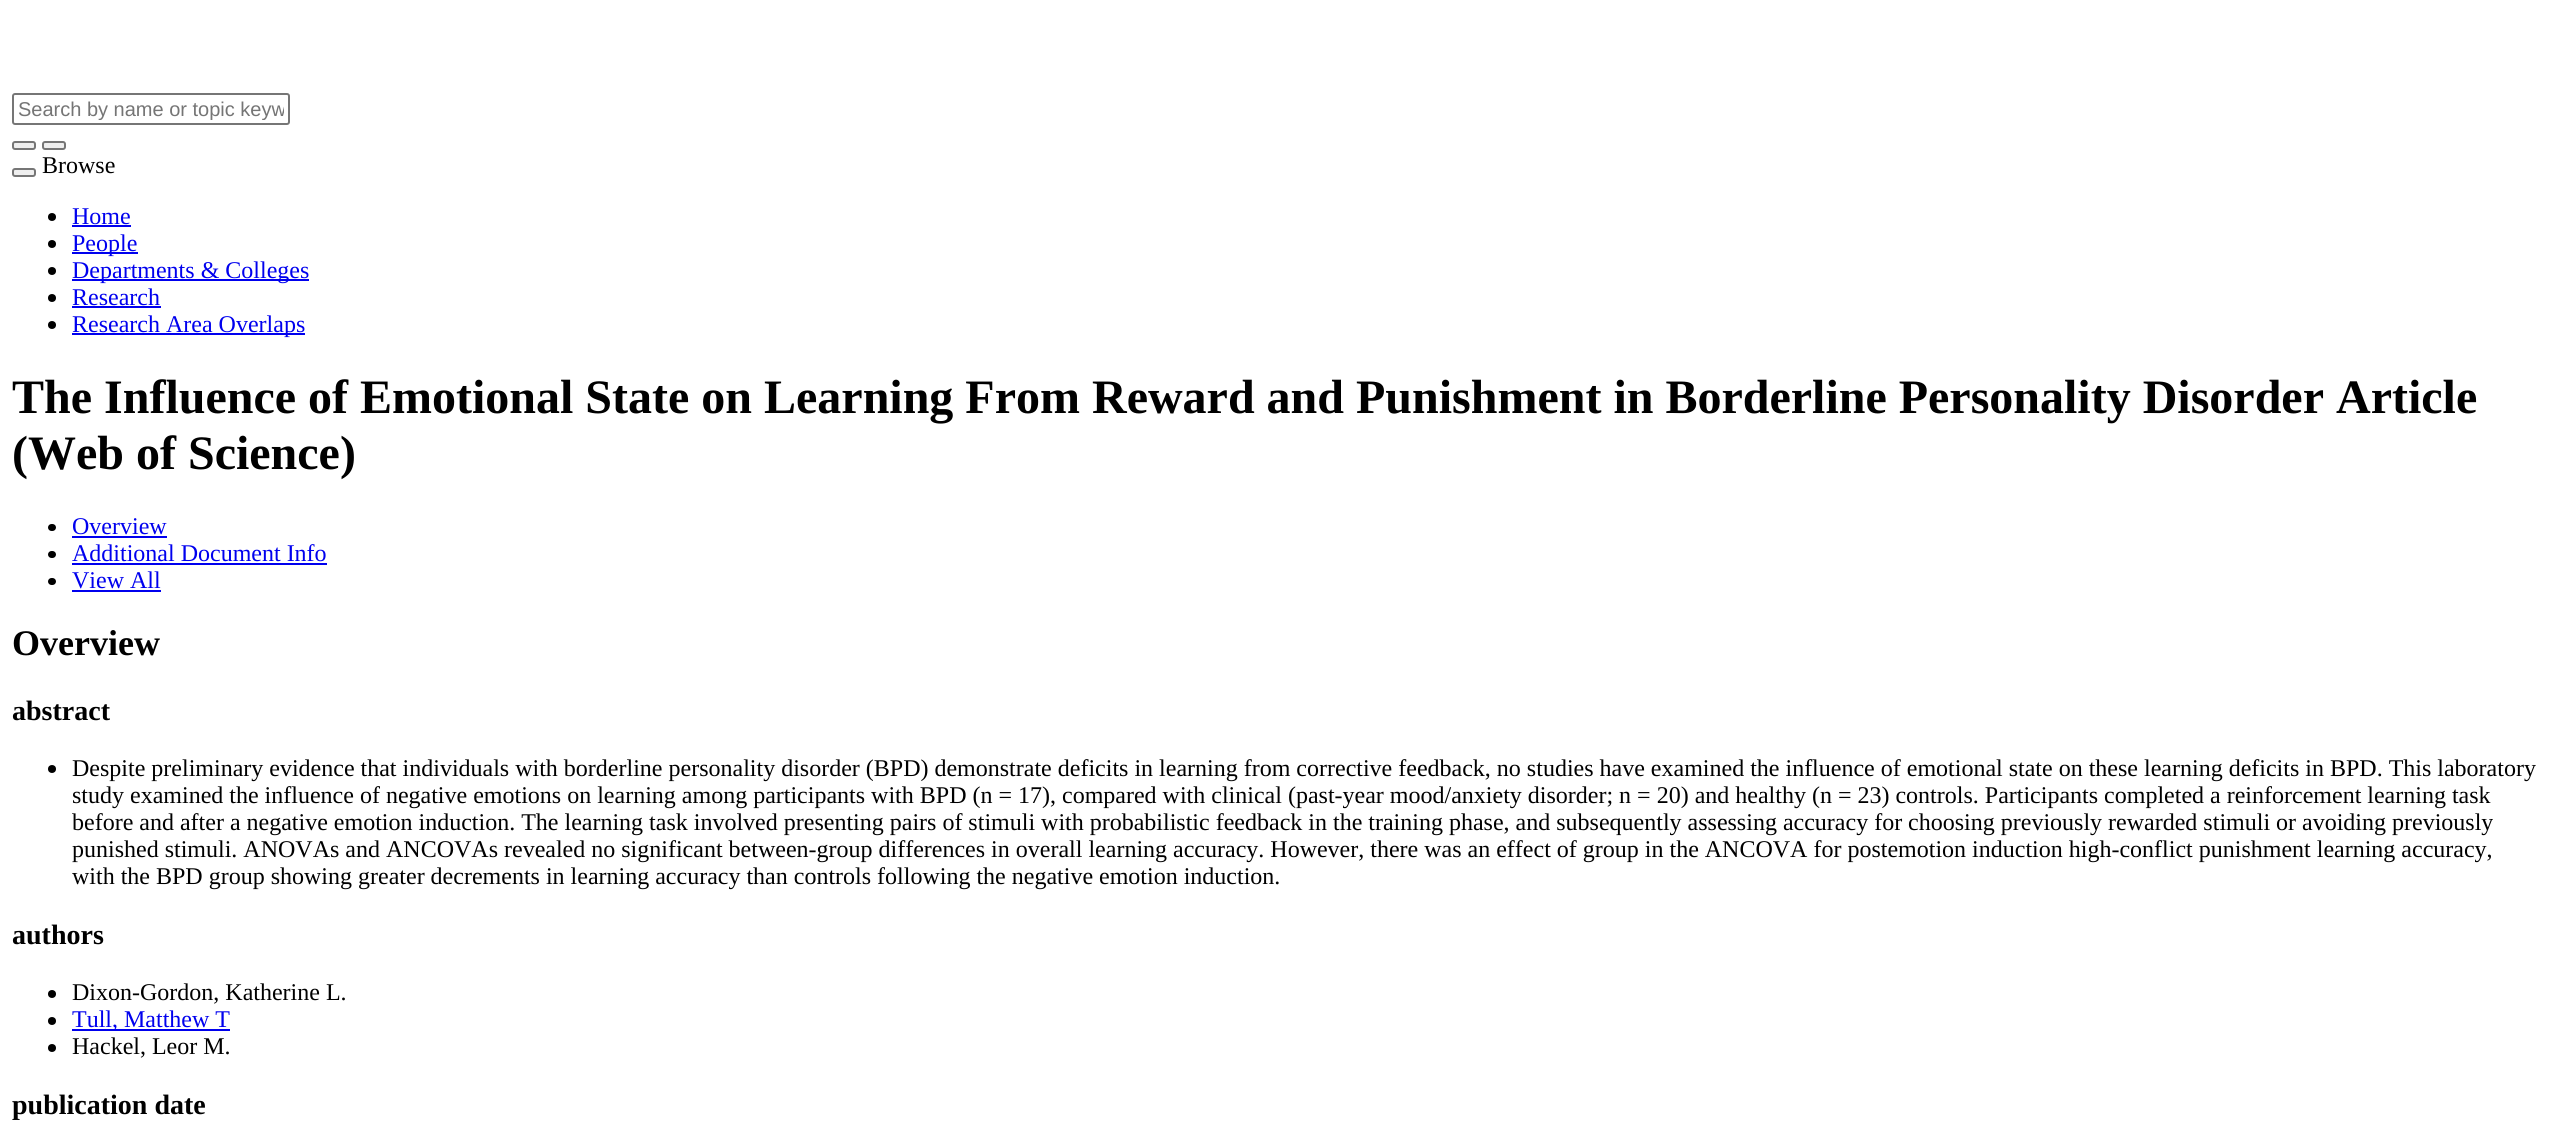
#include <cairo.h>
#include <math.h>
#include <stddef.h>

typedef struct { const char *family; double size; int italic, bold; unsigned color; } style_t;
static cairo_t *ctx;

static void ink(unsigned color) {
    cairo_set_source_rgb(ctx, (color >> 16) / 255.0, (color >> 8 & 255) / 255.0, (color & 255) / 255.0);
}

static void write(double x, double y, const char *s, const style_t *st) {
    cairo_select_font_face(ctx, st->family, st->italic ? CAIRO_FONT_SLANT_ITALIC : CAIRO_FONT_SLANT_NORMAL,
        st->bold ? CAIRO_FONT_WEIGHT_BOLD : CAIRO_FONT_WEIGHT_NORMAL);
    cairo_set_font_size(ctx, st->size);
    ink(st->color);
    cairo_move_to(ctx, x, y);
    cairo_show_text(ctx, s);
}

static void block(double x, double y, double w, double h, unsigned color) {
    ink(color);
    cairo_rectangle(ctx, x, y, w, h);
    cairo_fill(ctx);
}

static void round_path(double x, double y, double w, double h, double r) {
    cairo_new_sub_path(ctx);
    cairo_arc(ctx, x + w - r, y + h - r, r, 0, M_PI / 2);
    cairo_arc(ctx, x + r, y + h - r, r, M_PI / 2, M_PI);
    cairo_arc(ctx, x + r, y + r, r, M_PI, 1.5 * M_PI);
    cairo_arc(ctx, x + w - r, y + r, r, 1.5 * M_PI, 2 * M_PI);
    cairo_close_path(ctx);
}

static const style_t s1 = {"Liberation Sans", 20, 0, 0, 0x757575};
static const style_t s2 = {"Liberation Serif", 24, 0, 0, 0x000000};
static const style_t s3 = {"Liberation Serif", 24, 0, 0, 0x0000ee};
static const style_t s4 = {"Liberation Serif", 48, 0, 1, 0x000000};
static const style_t s5 = {"Liberation Serif", 36, 0, 1, 0x000000};
static const style_t s6 = {"Liberation Serif", 28, 0, 1, 0x000000};

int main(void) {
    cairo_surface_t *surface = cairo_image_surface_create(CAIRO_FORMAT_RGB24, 2551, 1140);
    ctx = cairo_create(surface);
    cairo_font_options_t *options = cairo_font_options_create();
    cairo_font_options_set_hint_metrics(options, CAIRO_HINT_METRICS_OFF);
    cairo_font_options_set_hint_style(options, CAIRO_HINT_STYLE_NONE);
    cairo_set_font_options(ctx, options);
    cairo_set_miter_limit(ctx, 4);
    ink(0xffffff);
    cairo_paint(ctx);
    round_path(13, 94, 276, 30, 2);
    ink(0x767676);
    cairo_stroke(ctx);
    cairo_save(ctx);
    cairo_rectangle(ctx, 18, 98, 266, 22);
    cairo_clip(ctx);
    write(18, 116, "Search by name or topic keyw", &s1);
    cairo_restore(ctx);
    ink(0xefefef);
    round_path(13, 142, 22, 7, 2);
    cairo_fill_preserve(ctx);
    ink(0x767676);
    cairo_stroke(ctx);
    ink(0xefefef);
    round_path(43, 142, 22, 7, 2);
    cairo_fill_preserve(ctx);
    ink(0x767676);
    cairo_stroke(ctx);
    ink(0xefefef);
    round_path(13, 169, 22, 7, 2);
    cairo_fill_preserve(ctx);
    ink(0x767676);
    cairo_stroke(ctx);
    write(42, 173, "Browse", &s2);
    cairo_new_path(ctx);
    cairo_arc(ctx, 52, 217, 4, 0, 2 * M_PI);
    cairo_fill(ctx);
    write(72, 224, "Home", &s3);
    block(72, 225, 59, 2, 0x0000ee);
    ink(0x000000);
    cairo_new_path(ctx);
    cairo_arc(ctx, 52, 244, 4, 0, 2 * M_PI);
    cairo_fill(ctx);
    block(72, 252, 66, 2, 0x0000ee);
    write(72, 251, "People", &s3);
    ink(0x000000);
    cairo_new_path(ctx);
    cairo_arc(ctx, 52, 271, 4, 0, 2 * M_PI);
    cairo_fill(ctx);
    block(72, 279, 237, 2, 0x0000ee);
    write(72, 278, "Departments & Colleges", &s3);
    ink(0x000000);
    cairo_new_path(ctx);
    cairo_arc(ctx, 52, 298, 4, 0, 2 * M_PI);
    cairo_fill(ctx);
    write(72, 305, "Research", &s3);
    block(72, 306, 89, 2, 0x0000ee);
    ink(0x000000);
    cairo_new_path(ctx);
    cairo_arc(ctx, 52, 325, 4, 0, 2 * M_PI);
    cairo_fill(ctx);
    block(72, 333, 233, 2, 0x0000ee);
    write(72, 332, "Research Area Overlaps", &s3);
    write(12, 413, "The Influence of Emotional State on Learning From Reward and Punishment in Borderline Personality Disorder Article", &s4);
    write(12, 469, "(Web of Science)", &s4);
    round_path(48, 524, 8, 7, 3.5);
    cairo_fill(ctx);
    write(72, 534, "Overview", &s3);
    block(72, 536, 95, 2, 0x0000ee);
    ink(0x000000);
    round_path(48, 551, 8, 7, 3.5);
    cairo_fill(ctx);
    write(72, 561, "Additional Document Info", &s3);
    block(72, 563, 255, 2, 0x0000ee);
    ink(0x000000);
    round_path(48, 578, 8, 7, 3.5);
    cairo_fill(ctx);
    write(72, 588, "View All", &s3);
    block(72, 590, 89, 2, 0x0000ee);
    write(12, 655, "Overview", &s5);
    write(12, 720, "abstract", &s6);
    cairo_new_path(ctx);
    cairo_arc(ctx, 52, 769, 4, 0, 2 * M_PI);
    cairo_fill(ctx);
    write(72, 776, "Despite preliminary evidence that individuals with borderline personality disorder (BPD) demonstrate deficits in learning from corrective feedback, no studies have examined the influence of emotional state on these learning deficits in BPD. This laboratory", &s2);
    write(72, 803, "study examined the influence of negative emotions on learning among participants with BPD (n = 17), compared with clinical (past-year mood/anxiety disorder; n = 20) and healthy (n = 23) controls. Participants completed a reinforcement learning task", &s2);
    write(72, 830, "before and after a negative emotion induction. The learning task involved presenting pairs of stimuli with probabilistic feedback in the training phase, and subsequently assessing accuracy for choosing previously rewarded stimuli or avoiding previously", &s2);
    write(72, 857, "punished stimuli. ANOVAs and ANCOVAs revealed no significant between-group differences in overall learning accuracy. However, there was an effect of group in the ANCOVA for postemotion induction high-conflict punishment learning accuracy,", &s2);
    write(72, 884, "with the BPD group showing greater decrements in learning accuracy than controls following the negative emotion induction.", &s2);
    write(12, 944, "authors", &s6);
    cairo_new_path(ctx);
    cairo_arc(ctx, 52, 994, 4, 0, 2 * M_PI);
    cairo_fill(ctx);
    write(72, 1000, "Dixon-Gordon, Katherine L.", &s2);
    cairo_new_path(ctx);
    cairo_arc(ctx, 52, 1021, 4, 0, 2 * M_PI);
    cairo_fill(ctx);
    block(72, 1029, 158, 2, 0x0000ee);
    write(72, 1027, "Tull, Matthew T", &s3);
    ink(0x000000);
    cairo_new_path(ctx);
    cairo_arc(ctx, 52, 1048, 4, 0, 2 * M_PI);
    cairo_fill(ctx);
    write(72, 1054, "Hackel, Leor M.", &s2);
    write(12, 1114, "publication date", &s6);
    cairo_surface_write_to_png(surface, "screenshot.png");
    cairo_font_options_destroy(options);
    cairo_destroy(ctx);
    cairo_surface_destroy(surface);
    return 0;
}
